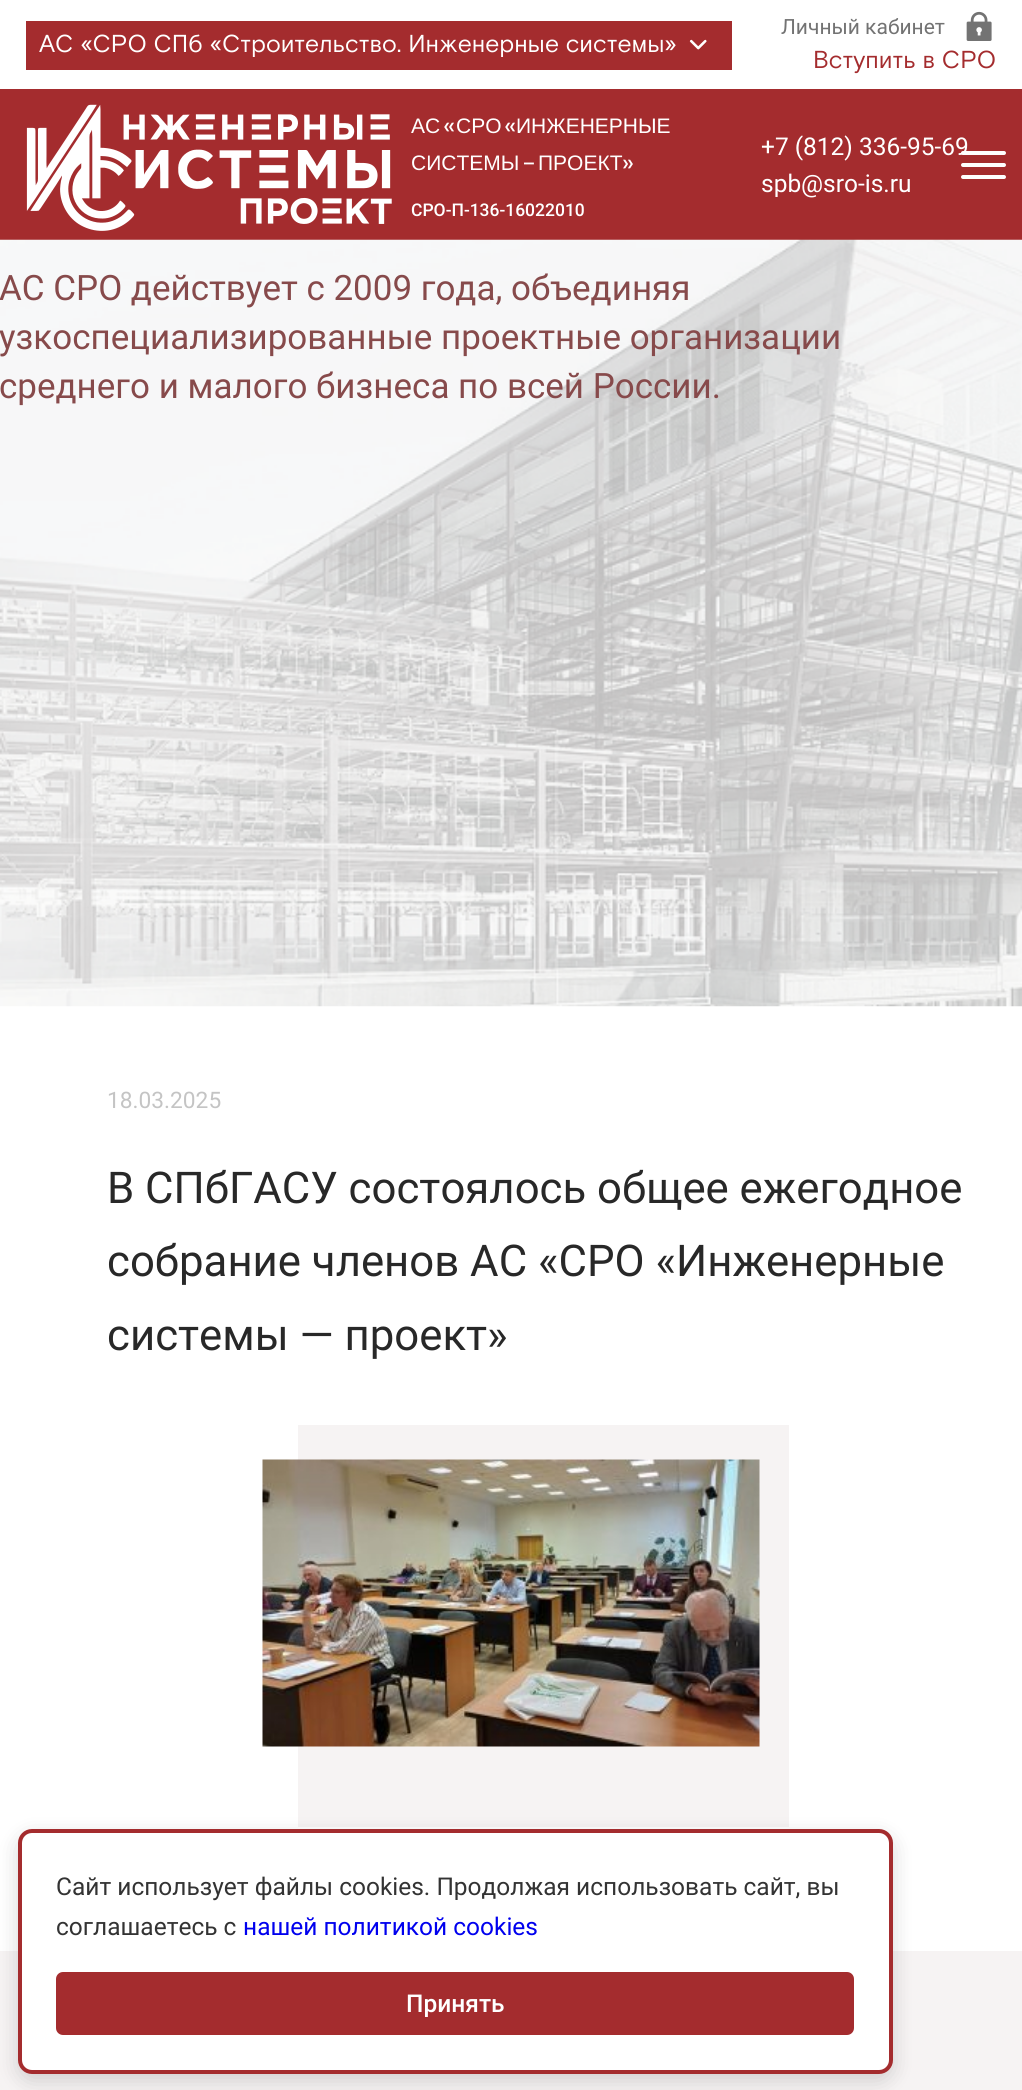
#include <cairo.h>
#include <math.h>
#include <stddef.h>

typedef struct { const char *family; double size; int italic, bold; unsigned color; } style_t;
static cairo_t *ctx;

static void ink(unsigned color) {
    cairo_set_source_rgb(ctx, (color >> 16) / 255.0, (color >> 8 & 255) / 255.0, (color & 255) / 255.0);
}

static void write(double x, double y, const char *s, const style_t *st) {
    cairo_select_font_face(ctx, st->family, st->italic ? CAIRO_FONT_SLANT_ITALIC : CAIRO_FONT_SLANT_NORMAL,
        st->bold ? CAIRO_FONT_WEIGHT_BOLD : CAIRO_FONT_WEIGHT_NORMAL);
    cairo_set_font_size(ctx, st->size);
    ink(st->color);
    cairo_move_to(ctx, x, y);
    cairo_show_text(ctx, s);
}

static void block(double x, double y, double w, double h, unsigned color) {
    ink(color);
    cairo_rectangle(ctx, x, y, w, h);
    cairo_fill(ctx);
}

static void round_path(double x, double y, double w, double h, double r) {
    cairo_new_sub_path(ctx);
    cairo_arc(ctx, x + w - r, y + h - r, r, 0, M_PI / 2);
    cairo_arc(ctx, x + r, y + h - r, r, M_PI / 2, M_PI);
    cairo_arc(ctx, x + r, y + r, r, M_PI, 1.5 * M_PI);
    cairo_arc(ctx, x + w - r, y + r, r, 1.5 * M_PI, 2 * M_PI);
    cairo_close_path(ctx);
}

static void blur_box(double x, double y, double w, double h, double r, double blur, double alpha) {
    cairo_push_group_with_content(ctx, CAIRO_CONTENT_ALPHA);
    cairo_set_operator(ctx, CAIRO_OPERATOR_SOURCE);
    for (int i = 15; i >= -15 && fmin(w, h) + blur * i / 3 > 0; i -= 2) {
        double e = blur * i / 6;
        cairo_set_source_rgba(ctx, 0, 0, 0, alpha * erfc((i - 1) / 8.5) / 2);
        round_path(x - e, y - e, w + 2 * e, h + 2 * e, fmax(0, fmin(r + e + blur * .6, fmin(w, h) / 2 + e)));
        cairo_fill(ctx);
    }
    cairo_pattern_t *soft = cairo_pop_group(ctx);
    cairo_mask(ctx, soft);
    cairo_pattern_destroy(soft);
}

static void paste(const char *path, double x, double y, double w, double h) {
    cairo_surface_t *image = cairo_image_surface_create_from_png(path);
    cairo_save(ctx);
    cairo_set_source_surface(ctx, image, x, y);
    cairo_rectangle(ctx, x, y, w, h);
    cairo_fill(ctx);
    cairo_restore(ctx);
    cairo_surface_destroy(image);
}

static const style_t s1 = {"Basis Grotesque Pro", 24.5, 0, 0, 0xffffff};
static const style_t s2 = {"Roboto", 21, 0, 0, 0x737373};
static const style_t s3 = {"Basis Grotesque Pro", 24.5, 0, 0, 0xa42c2e};
static const style_t s4 = {"Liberation Sans", 21, 0, 0, 0xffffff};
static const style_t s5 = {"Cabin Condensed", 21, 0, 0, 0xffffff};
static const style_t s6 = {"Roboto Medium", 17.5, 0, 0, 0xffffff};
static const style_t s7 = {"Roboto", 24.5, 0, 0, 0xffffff};
static const style_t s8 = {"Roboto", 35, 0, 0, 0x874a4b};
static const style_t s9 = {"Roboto", 22.75, 0, 0, 0xc4c4c4};
static const style_t s10 = {"Roboto", 43.75, 0, 0, 0x282828};
static const style_t s11 = {"Roboto", 24.5, 0, 0, 0x333333};
static const style_t s12 = {"Roboto", 24.5, 0, 0, 0x0000ee};
static const style_t s13 = {"Roboto Medium", 24.5, 0, 0, 0xffffff};

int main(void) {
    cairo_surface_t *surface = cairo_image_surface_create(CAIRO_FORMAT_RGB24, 1022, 2090);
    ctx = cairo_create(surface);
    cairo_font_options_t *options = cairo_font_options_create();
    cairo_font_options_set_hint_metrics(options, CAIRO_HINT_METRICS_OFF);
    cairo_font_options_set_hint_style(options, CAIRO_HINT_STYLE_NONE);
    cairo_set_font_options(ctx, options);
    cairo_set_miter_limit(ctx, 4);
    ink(0xffffff);
    cairo_paint(ctx);
    block(26, 21, 706, 49, 0xa42c2e);
    write(39, 52, "АС «СРО СПб «Строительство. Инженерные системы»", &s1);
    paste("pic1.png", 689, 39, 18, 11);
    write(781, 34, "Личный кабинет", &s2);
    paste("pic2.png", 966, 11, 26, 30);
    write(813, 68, "Вступить в СРО", &s3);
    block(0, 89, 1022, 151, 0xa42c2e);
    paste("pic3.png", 26, 104, 366, 127);
    write(411, 133, "АС", &s4);
    write(444, 133, "«", &s5);
    write(456, 133, "СРО", &s4);
    write(505, 133, "«", &s5);
    write(516, 133, "ИНЖЕНЕРНЫЕ", &s4);
    write(411, 170, "СИСТЕМЫ", &s4);
    write(524, 170, "–", &s5);
    write(538, 170, "ПРОЕКТ", &s4);
    write(622, 170, "»", &s5);
    write(411, 216, "СРО-П-136-16022010", &s6);
    write(761, 155, "+7 (812) 336-95-69", &s7);
    write(761, 192, "spb@sro-is.ru", &s7);
    round_path(961, 151, 45, 4, 2);
    cairo_fill(ctx);
    round_path(961, 163, 45, 4, 2);
    cairo_fill(ctx);
    round_path(961, 175, 45, 4, 2);
    cairo_fill(ctx);
    paste("pic4.png", 0, 239, 1022, 768);
    write(-1, 300, "АС СРО действует с 2009 года, объединяя", &s8);
    write(-1, 349, "узкоспециализированные проектные организации", &s8);
    write(-1, 398, "среднего и малого бизнеса по всей России.", &s8);
    write(107, 1108, "18.03.2025", &s9);
    write(107, 1203, "В СПбГАСУ состоялось общее ежегодное", &s10);
    write(107, 1276, "собрание членов АС «СРО «Инженерные", &s10);
    write(107, 1350, "системы — проект»", &s10);
    block(298, 1425, 491, 402, 0xf6f3f3);
    paste("pic5.png", 262, 1459, 498, 288);
    block(0, 1951, 1022, 139, 0xf6f3f3);
    ink(0x000000);
    blur_box(18, 1836, 875, 245, 14, 10.5, 0.15);
    ink(0xffffff);
    round_path(20, 1831, 871, 241, 12);
    cairo_fill_preserve(ctx);
    ink(0xa42c2e);
    cairo_set_line_width(ctx, 4);
    cairo_stroke(ctx);
    write(56, 1895, "Сайт использует файлы cookies. Продолжая использовать сайт, вы", &s11);
    write(56, 1935, "соглашаетесь с", &s11);
    write(243, 1935, "нашей политикой cookies", &s12);
    ink(0xa42c2e);
    round_path(56, 1972, 798, 63, 7);
    cairo_fill(ctx);
    write(406, 2012, "Принять", &s13);
    cairo_surface_write_to_png(surface, "screenshot.png");
    cairo_font_options_destroy(options);
    cairo_destroy(ctx);
    cairo_surface_destroy(surface);
    return 0;
}
